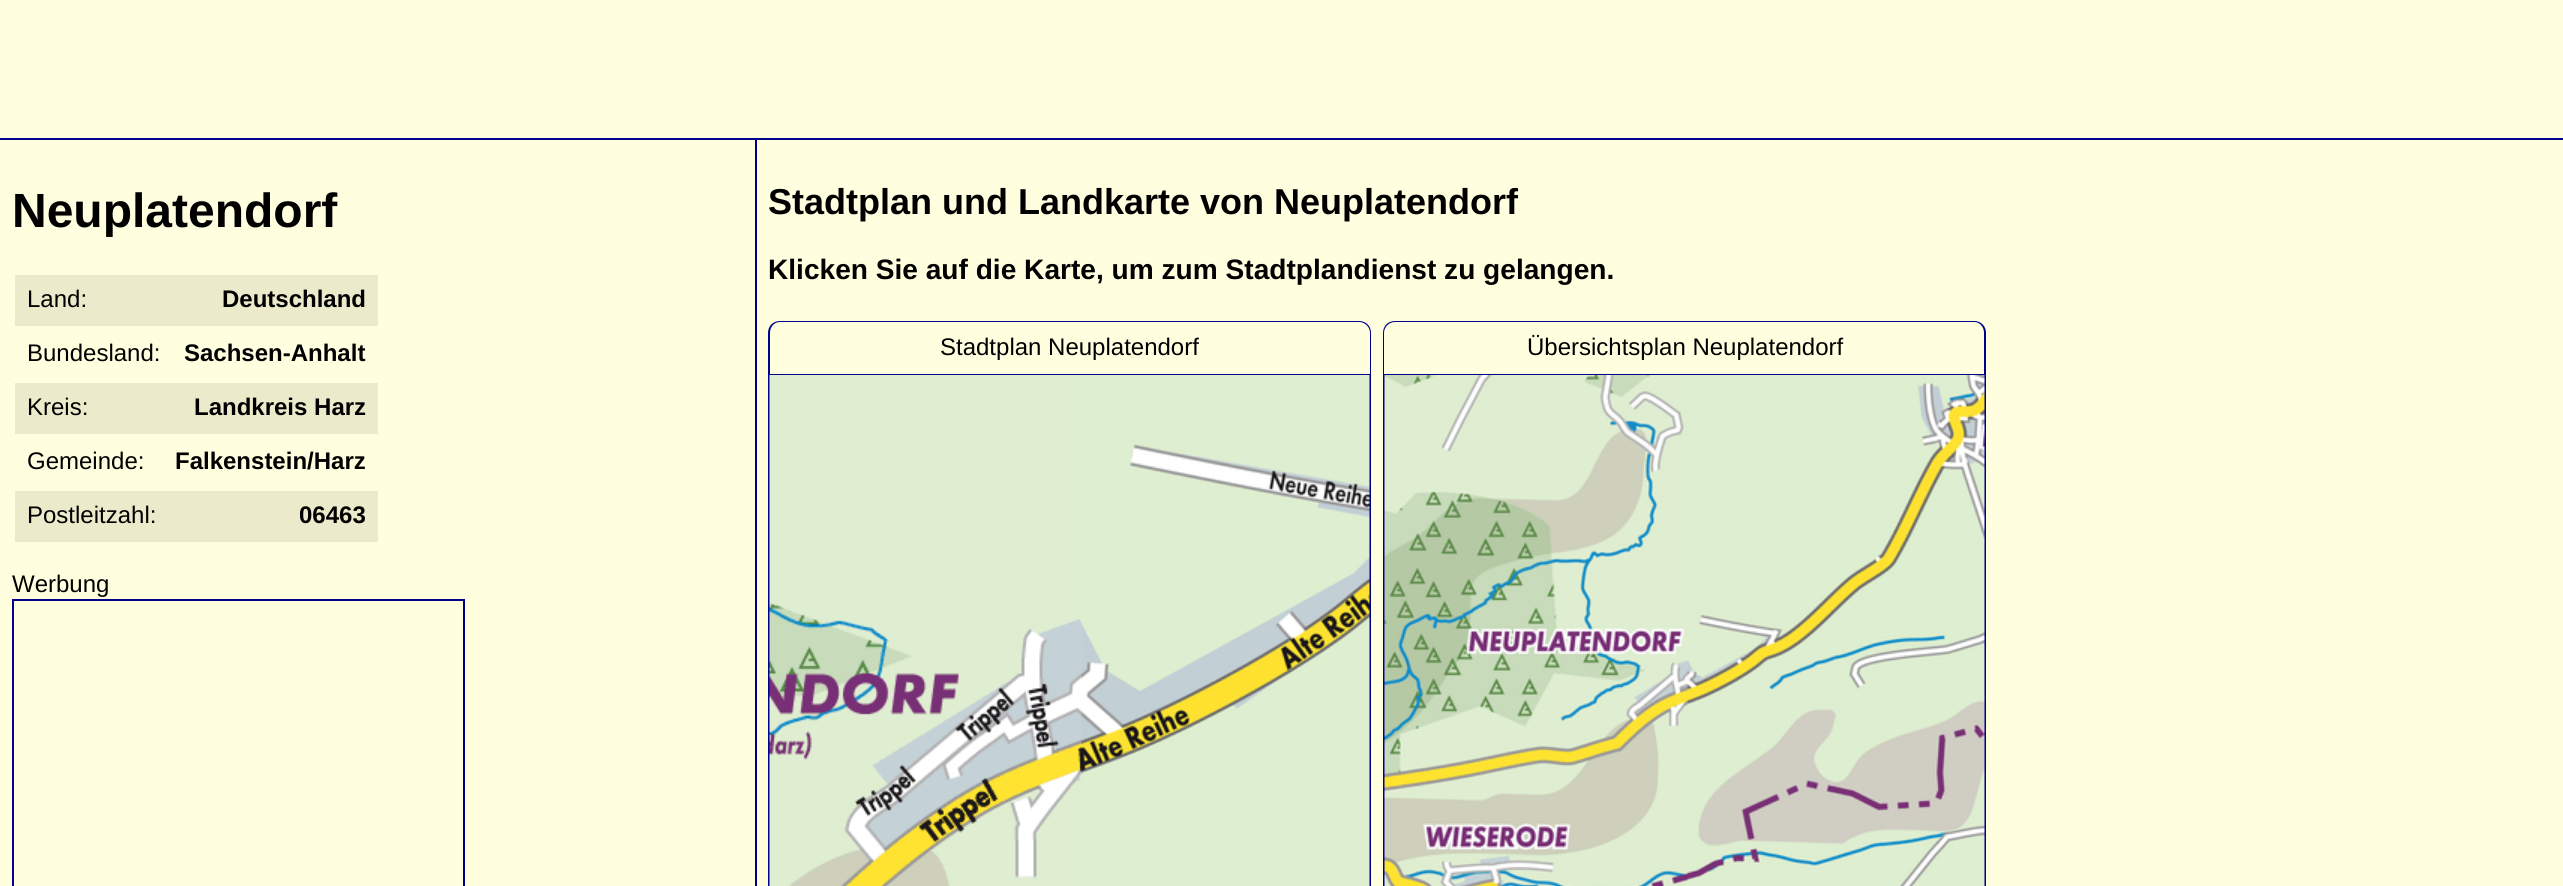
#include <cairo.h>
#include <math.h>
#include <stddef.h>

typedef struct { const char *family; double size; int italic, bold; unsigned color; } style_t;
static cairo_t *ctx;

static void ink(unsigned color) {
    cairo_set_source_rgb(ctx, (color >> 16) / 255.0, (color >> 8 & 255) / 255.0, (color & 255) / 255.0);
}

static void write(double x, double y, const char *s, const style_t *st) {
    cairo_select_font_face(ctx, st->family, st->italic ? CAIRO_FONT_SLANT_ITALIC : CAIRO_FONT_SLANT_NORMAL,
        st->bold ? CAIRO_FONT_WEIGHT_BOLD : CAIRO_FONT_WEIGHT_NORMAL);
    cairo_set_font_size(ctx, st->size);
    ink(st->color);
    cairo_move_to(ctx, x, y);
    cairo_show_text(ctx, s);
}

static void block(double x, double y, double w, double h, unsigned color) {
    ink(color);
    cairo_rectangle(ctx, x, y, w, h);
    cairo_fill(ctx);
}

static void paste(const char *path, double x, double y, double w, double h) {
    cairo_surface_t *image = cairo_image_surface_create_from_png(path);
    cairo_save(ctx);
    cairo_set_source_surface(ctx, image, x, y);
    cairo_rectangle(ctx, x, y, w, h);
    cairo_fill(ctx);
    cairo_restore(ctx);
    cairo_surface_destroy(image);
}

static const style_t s1 = {"Liberation Sans", 48, 0, 1, 0x000000};
static const style_t s2 = {"Liberation Sans", 24, 0, 0, 0x000000};
static const style_t s3 = {"Liberation Sans", 24, 0, 1, 0x000000};
static const style_t s4 = {"Liberation Sans", 36, 0, 1, 0x000000};
static const style_t s5 = {"Liberation Sans", 28.1, 0, 1, 0x000000};

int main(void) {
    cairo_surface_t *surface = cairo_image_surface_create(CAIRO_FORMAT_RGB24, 2563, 886);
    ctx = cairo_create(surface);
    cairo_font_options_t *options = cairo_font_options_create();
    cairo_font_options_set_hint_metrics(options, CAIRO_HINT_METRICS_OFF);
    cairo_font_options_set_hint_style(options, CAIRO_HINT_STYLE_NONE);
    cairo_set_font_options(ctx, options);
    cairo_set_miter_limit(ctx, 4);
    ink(0xffffe0);
    cairo_paint(ctx);
    block(0, 138, 2563, 2, 0x00008b);
    block(755, 140, 2, 746, 0x00008b);
    write(12, 227, "Neuplatendorf", &s1);
    block(15, 275, 363, 51, 0xebebcc);
    write(27, 307, "Land:", &s2);
    write(222, 307, "Deutschland", &s3);
    write(27, 361, "Bundesland:", &s2);
    write(184, 361, "Sachsen-Anhalt", &s3);
    block(15, 383, 363, 51, 0xebebcc);
    write(27, 415, "Kreis:", &s2);
    write(194, 415, "Landkreis Harz", &s3);
    write(27, 469, "Gemeinde:", &s2);
    write(175, 469, "Falkenstein/Harz", &s3);
    block(15, 491, 363, 51, 0xebebcc);
    write(27, 523, "Postleitzahl:", &s2);
    write(299, 523, "06463", &s3);
    write(12, 592, "Werbung", &s2);
    cairo_rectangle(ctx, 13, 600, 451, 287);
    ink(0x00008b);
    cairo_stroke(ctx);
    write(768, 214, "Stadtplan und Landkarte von Neuplatendorf", &s4);
    write(768, 279, "Klicken Sie auf die Karte, um zum Stadtplandienst zu gelangen.", &s5);
    ink(0x00008b);
    cairo_set_fill_rule(ctx, CAIRO_FILL_RULE_EVEN_ODD);
    cairo_new_path(ctx);
    cairo_move_to(ctx, 780, 321);
    cairo_line_to(ctx, 1359, 321);
    cairo_curve_to(ctx, 1366, 321, 1371, 326, 1371, 333);
    cairo_line_to(ctx, 1371, 374);
    cairo_line_to(ctx, 768, 374);
    cairo_line_to(ctx, 768, 333);
    cairo_curve_to(ctx, 768, 326, 773, 321, 780, 321);
    cairo_close_path(ctx);
    cairo_move_to(ctx, 780, 322);
    cairo_line_to(ctx, 1359, 322);
    cairo_curve_to(ctx, 1365, 322, 1370, 327, 1370, 333);
    cairo_line_to(ctx, 1370, 374);
    cairo_line_to(ctx, 770, 374);
    cairo_line_to(ctx, 770, 333);
    cairo_curve_to(ctx, 770, 327, 774, 322, 780, 322);
    cairo_close_path(ctx);
    cairo_fill(ctx);
    write(940, 355, "Stadtplan Neuplatendorf", &s2);
    cairo_rectangle(ctx, 769, 375, 601, 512);
    ink(0x00008b);
    cairo_stroke(ctx);
    paste("pic1.png", 769, 375, 601, 511);
    cairo_new_path(ctx);
    cairo_move_to(ctx, 1395, 321);
    cairo_line_to(ctx, 1974, 321);
    cairo_curve_to(ctx, 1981, 321, 1986, 326, 1986, 333);
    cairo_line_to(ctx, 1986, 374);
    cairo_line_to(ctx, 1383, 374);
    cairo_line_to(ctx, 1383, 333);
    cairo_curve_to(ctx, 1383, 326, 1388, 321, 1395, 321);
    cairo_close_path(ctx);
    cairo_move_to(ctx, 1395, 322);
    cairo_line_to(ctx, 1974, 322);
    cairo_curve_to(ctx, 1980, 322, 1984, 327, 1984, 333);
    cairo_line_to(ctx, 1984, 374);
    cairo_line_to(ctx, 1384, 374);
    cairo_line_to(ctx, 1384, 333);
    cairo_curve_to(ctx, 1384, 327, 1389, 322, 1395, 322);
    cairo_close_path(ctx);
    cairo_fill(ctx);
    write(1527, 355, "Übersichtsplan Neuplatendorf", &s2);
    cairo_rectangle(ctx, 1384, 375, 601, 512);
    ink(0x00008b);
    cairo_stroke(ctx);
    paste("pic2.png", 1384, 375, 601, 511);
    cairo_surface_write_to_png(surface, "screenshot.png");
    cairo_font_options_destroy(options);
    cairo_destroy(ctx);
    cairo_surface_destroy(surface);
    return 0;
}
